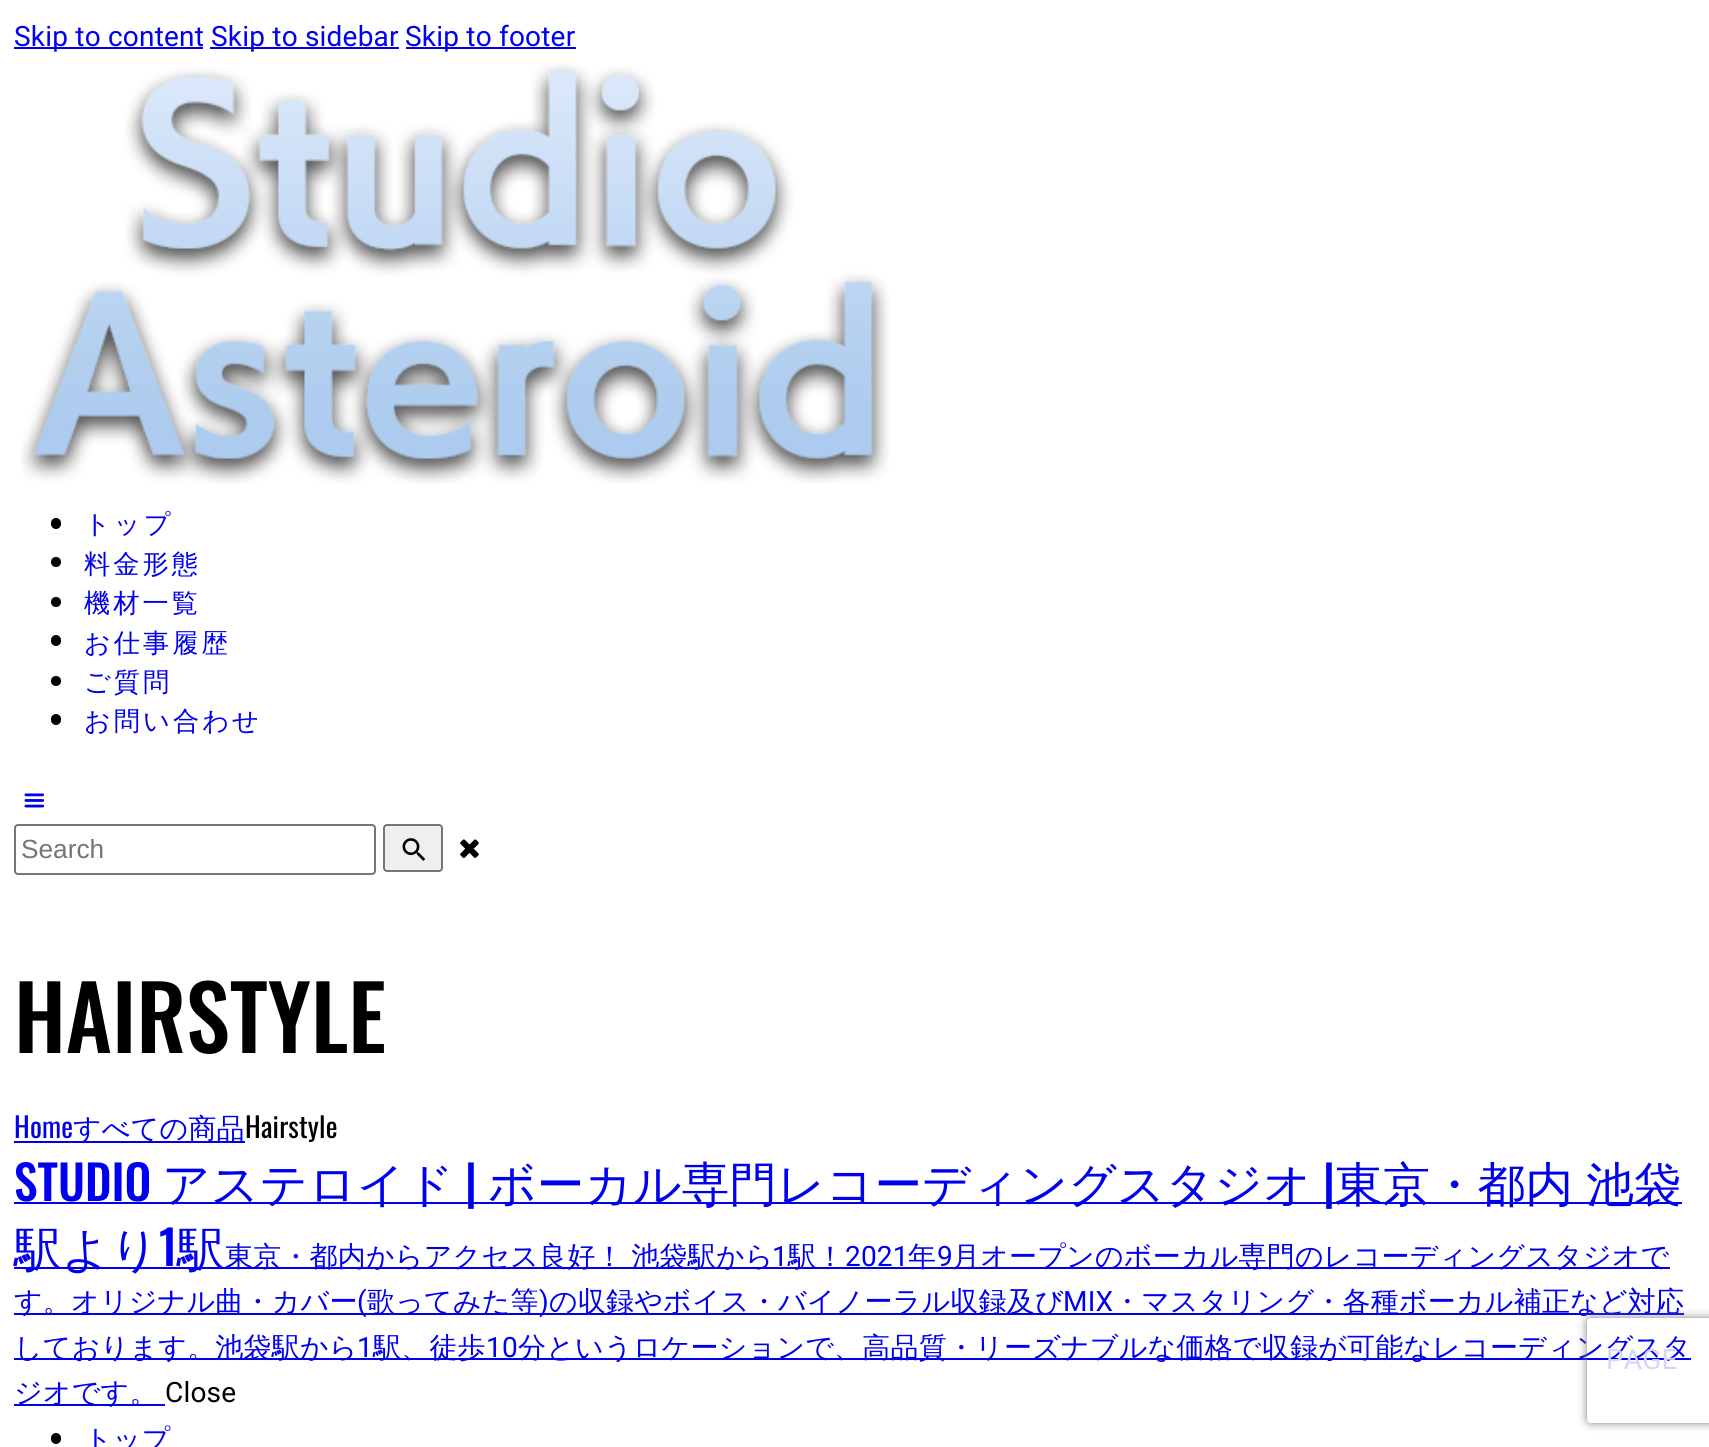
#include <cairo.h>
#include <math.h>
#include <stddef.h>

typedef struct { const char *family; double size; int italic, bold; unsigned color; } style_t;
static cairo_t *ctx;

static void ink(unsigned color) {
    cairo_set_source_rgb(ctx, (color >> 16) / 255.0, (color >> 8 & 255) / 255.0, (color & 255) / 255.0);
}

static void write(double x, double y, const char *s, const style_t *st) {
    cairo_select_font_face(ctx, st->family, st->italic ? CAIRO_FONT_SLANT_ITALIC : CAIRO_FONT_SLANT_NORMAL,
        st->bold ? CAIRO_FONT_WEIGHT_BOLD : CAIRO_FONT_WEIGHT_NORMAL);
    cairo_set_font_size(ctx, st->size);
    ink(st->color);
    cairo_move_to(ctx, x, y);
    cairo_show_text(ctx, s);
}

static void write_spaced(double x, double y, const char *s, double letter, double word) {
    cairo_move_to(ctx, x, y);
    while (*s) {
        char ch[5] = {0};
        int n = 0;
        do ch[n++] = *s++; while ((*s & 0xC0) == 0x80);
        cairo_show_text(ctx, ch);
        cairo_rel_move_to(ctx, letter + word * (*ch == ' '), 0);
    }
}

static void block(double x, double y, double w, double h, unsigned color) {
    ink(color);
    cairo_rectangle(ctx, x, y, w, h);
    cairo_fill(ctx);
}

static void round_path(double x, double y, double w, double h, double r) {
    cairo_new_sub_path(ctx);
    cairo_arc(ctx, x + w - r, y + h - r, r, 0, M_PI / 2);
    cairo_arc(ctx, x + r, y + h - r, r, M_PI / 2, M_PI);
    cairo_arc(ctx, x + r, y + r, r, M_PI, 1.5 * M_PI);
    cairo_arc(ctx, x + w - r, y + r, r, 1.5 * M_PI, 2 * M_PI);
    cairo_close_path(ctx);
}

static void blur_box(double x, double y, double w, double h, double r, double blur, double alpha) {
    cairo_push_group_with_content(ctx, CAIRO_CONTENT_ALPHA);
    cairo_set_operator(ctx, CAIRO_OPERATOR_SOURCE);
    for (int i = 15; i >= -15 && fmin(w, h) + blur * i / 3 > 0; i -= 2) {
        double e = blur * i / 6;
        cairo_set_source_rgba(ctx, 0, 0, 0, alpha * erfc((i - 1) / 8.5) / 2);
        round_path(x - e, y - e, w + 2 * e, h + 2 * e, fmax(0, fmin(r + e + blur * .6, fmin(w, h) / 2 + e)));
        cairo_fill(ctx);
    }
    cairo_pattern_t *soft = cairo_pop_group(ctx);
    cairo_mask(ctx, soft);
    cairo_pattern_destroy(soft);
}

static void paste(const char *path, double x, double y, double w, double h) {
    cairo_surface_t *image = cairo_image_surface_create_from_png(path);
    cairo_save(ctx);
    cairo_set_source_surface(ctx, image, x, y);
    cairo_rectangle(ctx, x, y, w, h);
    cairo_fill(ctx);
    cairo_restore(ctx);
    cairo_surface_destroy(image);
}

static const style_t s1 = {"Liberation Sans", 26.25, 0, 0, 0x757575};
static const style_t s2 = {"Oswald Medium", 88.5, 0, 0, 0x000000};
static const style_t s3 = {"Oswald Medium", 47.6, 0, 0, 0x0000ee};
static const style_t s4 = {"WenQuanYi Zen Hei Medium", 47.6, 0, 0, 0x0000ee};

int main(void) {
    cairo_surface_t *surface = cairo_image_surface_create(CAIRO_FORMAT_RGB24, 1709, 1447);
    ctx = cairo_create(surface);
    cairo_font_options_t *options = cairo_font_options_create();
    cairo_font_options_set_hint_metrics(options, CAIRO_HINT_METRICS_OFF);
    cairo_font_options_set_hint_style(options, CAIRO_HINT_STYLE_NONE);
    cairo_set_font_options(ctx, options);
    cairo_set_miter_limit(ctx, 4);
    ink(0xffffff);
    cairo_paint(ctx);
    block(14, 47, 189, 2, 0x0000ee);
    cairo_select_font_face(ctx, "Roboto", CAIRO_FONT_SLANT_NORMAL, CAIRO_FONT_WEIGHT_NORMAL);
    cairo_set_font_size(ctx, 28);
    write_spaced(14, 46, "Skip to content", 0.2, 0);
    block(210, 47, 189, 2, 0x0000ee);
    write_spaced(211, 46, "Skip to sidebar", 0.2, 0);
    block(406, 47, 170, 2, 0x0000ee);
    write_spaced(405, 46, "Skip to footer", 0.2, 0);
    paste("pic1.png", 21, 64, 868, 420);
    ink(0x000000);
    round_path(51, 518, 10, 11, 5);
    cairo_fill(ctx);
    cairo_select_font_face(ctx, "WenQuanYi Zen Hei Medium", CAIRO_FONT_SLANT_NORMAL, CAIRO_FONT_WEIGHT_NORMAL);
    cairo_set_font_size(ctx, 26.25);
    ink(0x0000ee);
    write_spaced(84, 533, "トップ", 3, 0);
    ink(0x000000);
    cairo_new_path(ctx);
    cairo_arc(ctx, 56, 562, 5, 0, 2 * M_PI);
    cairo_fill(ctx);
    ink(0x0000ee);
    write_spaced(84, 573, "料金形態", 3, 0);
    ink(0x000000);
    cairo_new_path(ctx);
    cairo_arc(ctx, 56, 602, 5, 0, 2 * M_PI);
    cairo_fill(ctx);
    ink(0x0000ee);
    write_spaced(84, 612, "機材一覧", 3, 0);
    ink(0x000000);
    round_path(51, 635, 10, 11, 5);
    cairo_fill(ctx);
    ink(0x0000ee);
    write_spaced(84, 652, "お仕事履歴", 3, 0);
    ink(0x000000);
    cairo_new_path(ctx);
    cairo_arc(ctx, 56, 681, 5, 0, 2 * M_PI);
    cairo_fill(ctx);
    ink(0x0000ee);
    write_spaced(84, 691, "ご質問", 3, 0);
    ink(0x000000);
    round_path(51, 714, 10, 11, 5);
    cairo_fill(ctx);
    ink(0x0000ee);
    write_spaced(84, 730, "お問い合わせ", 3, 0);
    paste("pic2.png", 24, 793, 21, 15);
    round_path(15, 825, 360, 49, 3);
    ink(0x767676);
    cairo_stroke(ctx);
    write(21, 858, "Search", &s1);
    ink(0xefefef);
    round_path(384, 825, 58, 46, 3);
    cairo_fill_preserve(ctx);
    ink(0x767676);
    cairo_stroke(ctx);
    paste("pic3.png", 402, 838, 24, 23);
    paste("pic4.png", 460, 839, 19, 19);
    write(14, 1053, "HAIRSTYLE", &s2);
    cairo_select_font_face(ctx, "Oswald", CAIRO_FONT_SLANT_NORMAL, CAIRO_FONT_WEIGHT_NORMAL);
    cairo_set_font_size(ctx, 28);
    ink(0x0000ee);
    write_spaced(14, 1138, "Home", 0.2, 0);
    block(14, 1141, 231, 2, 0x0000ee);
    cairo_select_font_face(ctx, "WenQuanYi Zen Hei Medium", CAIRO_FONT_SLANT_NORMAL, CAIRO_FONT_WEIGHT_NORMAL);
    write_spaced(73, 1138, "すべての商品", 0.2, 0);
    cairo_select_font_face(ctx, "Oswald", CAIRO_FONT_SLANT_NORMAL, CAIRO_FONT_WEIGHT_NORMAL);
    ink(0x000000);
    write_spaced(245, 1138, "Hairstyle", 0.2, 0);
    write(14, 1201, "STUDIO", &s3);
    block(14, 1202, 1668, 2, 0x0000ee);
    write(162, 1201, "アステロイド", &s4);
    write(465, 1201, "|", &s3);
    write(488, 1201, "ボーカル専門レコーディングスタジオ", &s4);
    write(1323, 1201, "|", &s3);
    cairo_select_font_face(ctx, "WenQuanYi Zen Hei Medium", CAIRO_FONT_SLANT_NORMAL, CAIRO_FONT_WEIGHT_NORMAL);
    write_spaced(1335, 1201, "東京・都内 池袋", 0, -1);
    block(14, 1267, 1656, 2, 0x0000ee);
    write(14, 1266, "駅より", &s4);
    write(159, 1266, "1", &s3);
    write(177, 1266, "駅", &s4);
    cairo_set_font_size(ctx, 28);
    write_spaced(225, 1266, "東京・都内からアクセス良好！ 池袋駅から", 0.2, -1);
    cairo_select_font_face(ctx, "Roboto", CAIRO_FONT_SLANT_NORMAL, CAIRO_FONT_WEIGHT_NORMAL);
    write_spaced(772, 1266, "1", 0.2, 0);
    cairo_select_font_face(ctx, "WenQuanYi Zen Hei Medium", CAIRO_FONT_SLANT_NORMAL, CAIRO_FONT_WEIGHT_NORMAL);
    write_spaced(788, 1266, "駅！", 0.2, 0);
    cairo_select_font_face(ctx, "Roboto", CAIRO_FONT_SLANT_NORMAL, CAIRO_FONT_WEIGHT_NORMAL);
    write_spaced(845, 1266, "2021", 0.2, 0);
    cairo_select_font_face(ctx, "WenQuanYi Zen Hei Medium", CAIRO_FONT_SLANT_NORMAL, CAIRO_FONT_WEIGHT_NORMAL);
    write_spaced(908, 1266, "年", 0.2, 0);
    cairo_select_font_face(ctx, "Roboto", CAIRO_FONT_SLANT_NORMAL, CAIRO_FONT_WEIGHT_NORMAL);
    write_spaced(937, 1266, "9", 0.2, 0);
    cairo_select_font_face(ctx, "WenQuanYi Zen Hei Medium", CAIRO_FONT_SLANT_NORMAL, CAIRO_FONT_WEIGHT_NORMAL);
    write_spaced(952, 1266, "月オープンのボーカル専門のレコーディングスタジオで", 0.2, 0);
    block(14, 1313, 1670, 2, 0x0000ee);
    write_spaced(14, 1311, "す。オリジナル曲・カバー", 0.2, 0);
    cairo_select_font_face(ctx, "Roboto", CAIRO_FONT_SLANT_NORMAL, CAIRO_FONT_WEIGHT_NORMAL);
    write_spaced(357, 1311, "(", 0.2, 0);
    cairo_select_font_face(ctx, "WenQuanYi Zen Hei Medium", CAIRO_FONT_SLANT_NORMAL, CAIRO_FONT_WEIGHT_NORMAL);
    write_spaced(367, 1311, "歌ってみた等", 0.2, 0);
    cairo_select_font_face(ctx, "Roboto", CAIRO_FONT_SLANT_NORMAL, CAIRO_FONT_WEIGHT_NORMAL);
    write_spaced(539, 1311, ")", 0.2, 0);
    cairo_select_font_face(ctx, "WenQuanYi Zen Hei Medium", CAIRO_FONT_SLANT_NORMAL, CAIRO_FONT_WEIGHT_NORMAL);
    write_spaced(549, 1311, "の収録やボイス・バイノーラル収録及び", 0.2, 0);
    cairo_select_font_face(ctx, "Roboto", CAIRO_FONT_SLANT_NORMAL, CAIRO_FONT_WEIGHT_NORMAL);
    write_spaced(1063, 1311, "MIX", 0.2, 0);
    cairo_select_font_face(ctx, "WenQuanYi Zen Hei Medium", CAIRO_FONT_SLANT_NORMAL, CAIRO_FONT_WEIGHT_NORMAL);
    write_spaced(1113, 1311, "・マスタリング・各種ボーカル補正など対応", 0.2, 0);
    block(14, 1358, 1677, 2, 0x0000ee);
    write_spaced(14, 1357, "しております。池袋駅から", 0.2, 0);
    cairo_select_font_face(ctx, "Roboto", CAIRO_FONT_SLANT_NORMAL, CAIRO_FONT_WEIGHT_NORMAL);
    write_spaced(357, 1357, "1", 0.2, 0);
    cairo_select_font_face(ctx, "WenQuanYi Zen Hei Medium", CAIRO_FONT_SLANT_NORMAL, CAIRO_FONT_WEIGHT_NORMAL);
    write_spaced(373, 1357, "駅、徒歩", 0.2, 0);
    cairo_select_font_face(ctx, "Roboto", CAIRO_FONT_SLANT_NORMAL, CAIRO_FONT_WEIGHT_NORMAL);
    write_spaced(486, 1357, "10", 0.2, 0);
    cairo_select_font_face(ctx, "WenQuanYi Zen Hei Medium", CAIRO_FONT_SLANT_NORMAL, CAIRO_FONT_WEIGHT_NORMAL);
    write_spaced(518, 1357, "分というロケーションで、高品質・リーズナブルな価格で収録が可能なレコーディングスタ", 0.2, 0);
    block(14, 1404, 151, 2, 0x0000ee);
    write_spaced(14, 1402, "ジオです。", 0.2, 0);
    cairo_select_font_face(ctx, "Roboto", CAIRO_FONT_SLANT_NORMAL, CAIRO_FONT_WEIGHT_NORMAL);
    ink(0x000000);
    write_spaced(165, 1402, "Close", 0.2, 0);
    round_path(51, 1433, 10, 11, 5);
    cairo_fill(ctx);
    cairo_select_font_face(ctx, "WenQuanYi Zen Hei Medium", CAIRO_FONT_SLANT_NORMAL, CAIRO_FONT_WEIGHT_NORMAL);
    ink(0x0000ee);
    write_spaced(84, 1449, "トップ", 0.2, 0);
    cairo_save(ctx);
    cairo_set_fill_rule(ctx, CAIRO_FILL_RULE_EVEN_ODD);
    cairo_new_path(ctx);
    cairo_move_to(ctx, 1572, 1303);
    cairo_line_to(ctx, 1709, 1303);
    cairo_line_to(ctx, 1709, 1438);
    cairo_line_to(ctx, 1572, 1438);
    cairo_close_path(ctx);
    cairo_move_to(ctx, 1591, 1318);
    cairo_line_to(ctx, 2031, 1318);
    cairo_curve_to(ctx, 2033, 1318, 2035, 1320, 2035, 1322);
    cairo_line_to(ctx, 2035, 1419);
    cairo_curve_to(ctx, 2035, 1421, 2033, 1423, 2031, 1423);
    cairo_line_to(ctx, 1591, 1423);
    cairo_curve_to(ctx, 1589, 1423, 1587, 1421, 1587, 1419);
    cairo_line_to(ctx, 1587, 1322);
    cairo_curve_to(ctx, 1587, 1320, 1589, 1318, 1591, 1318);
    cairo_close_path(ctx);
    cairo_clip(ctx);
    ink(0x808080);
    blur_box(1587, 1318, 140, 105, 4, 4.5, 1);
    cairo_restore(ctx);
    cairo_select_font_face(ctx, "Roboto", CAIRO_FONT_SLANT_NORMAL, CAIRO_FONT_WEIGHT_NORMAL);
    ink(0xd5d5fc);
    write_spaced(1606, 1369, "PAGE", 0.2, 0);
    cairo_surface_write_to_png(surface, "screenshot.png");
    cairo_font_options_destroy(options);
    cairo_destroy(ctx);
    cairo_surface_destroy(surface);
    return 0;
}
